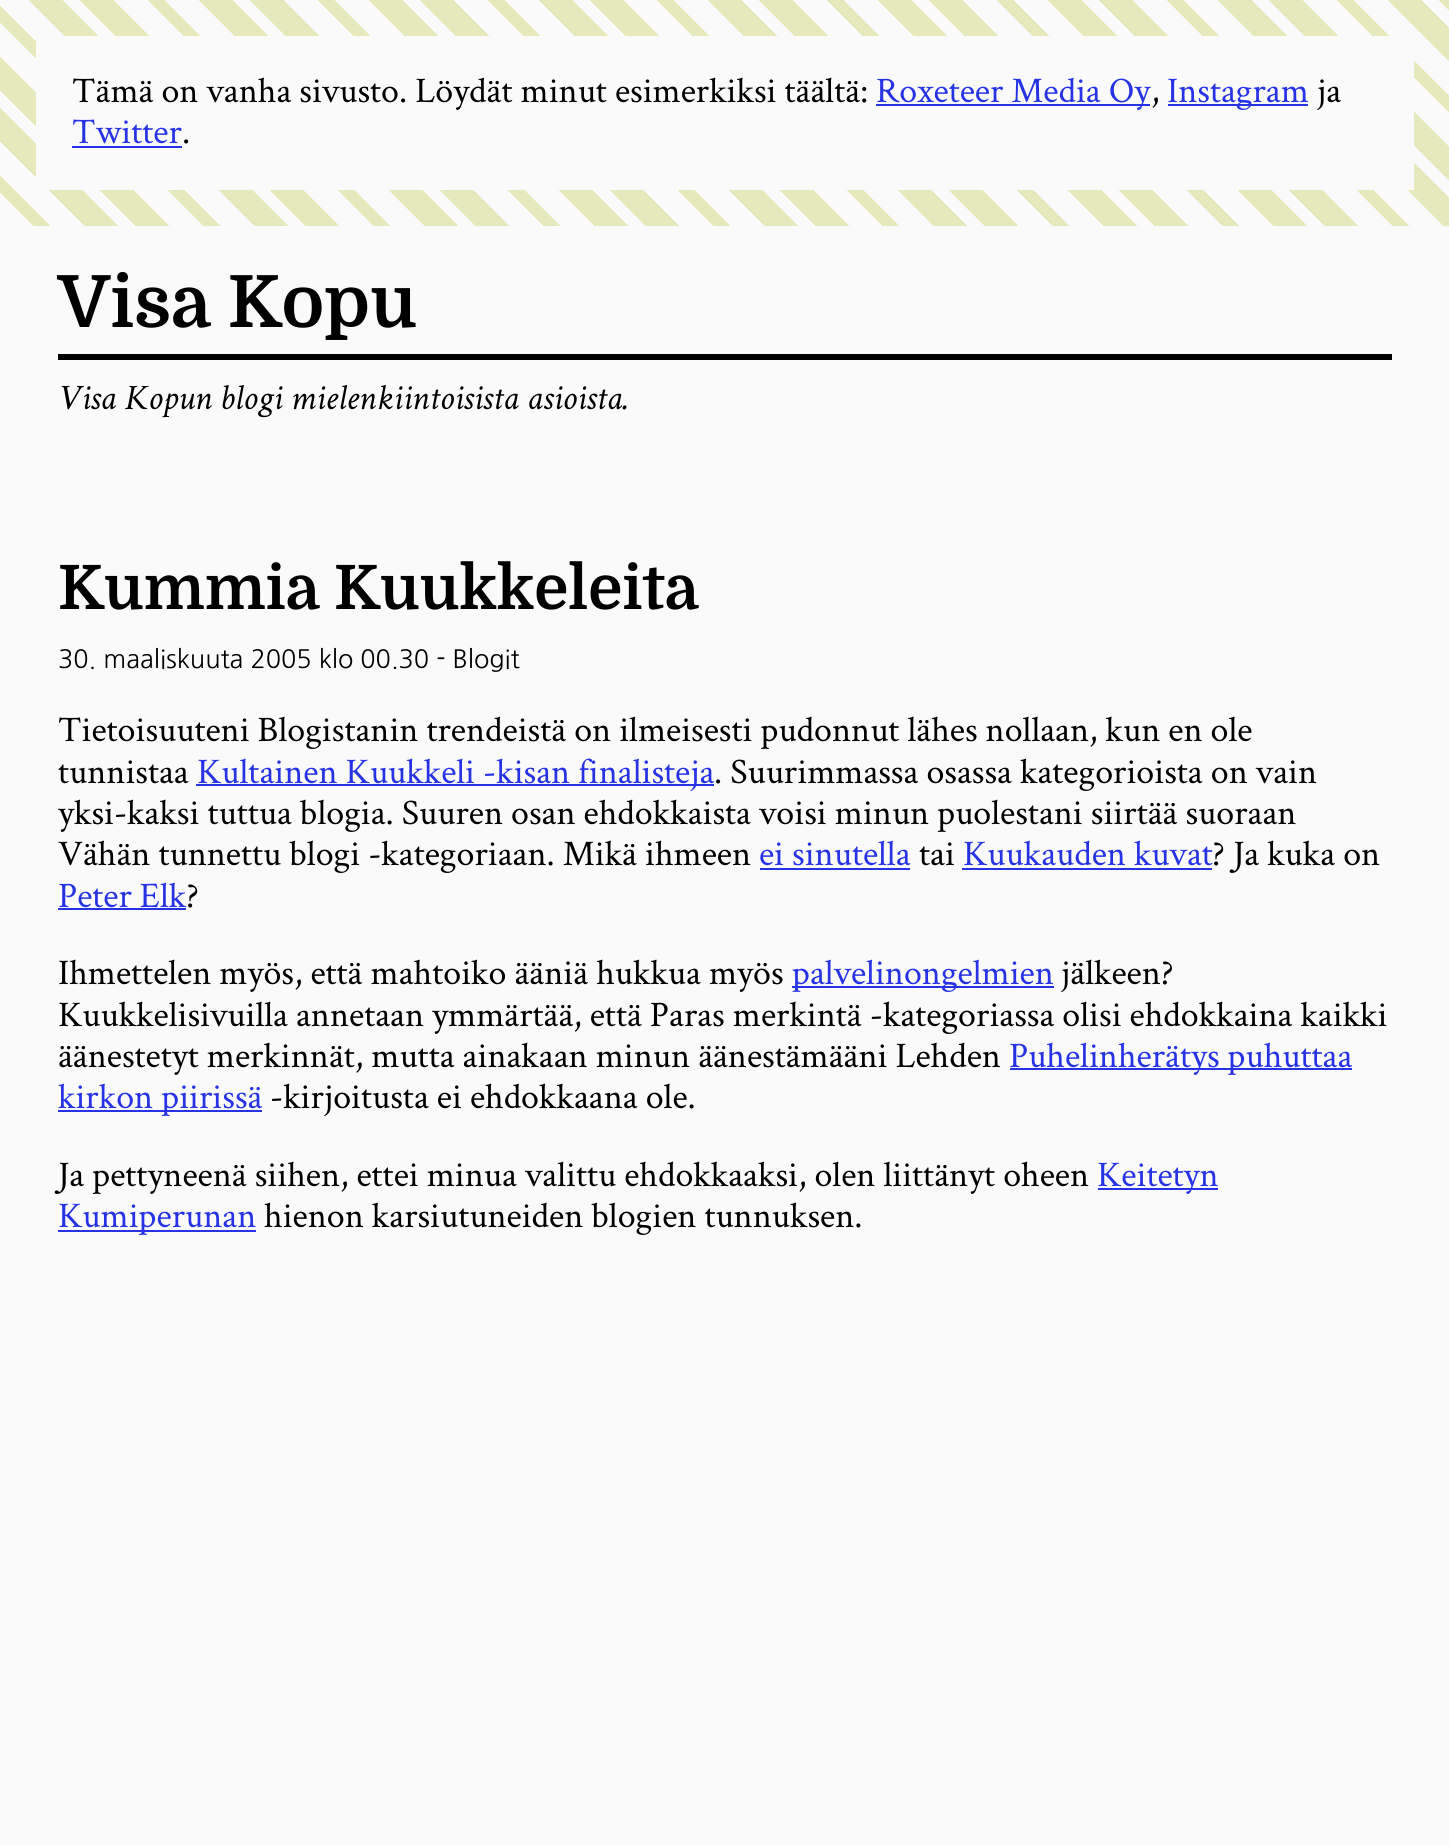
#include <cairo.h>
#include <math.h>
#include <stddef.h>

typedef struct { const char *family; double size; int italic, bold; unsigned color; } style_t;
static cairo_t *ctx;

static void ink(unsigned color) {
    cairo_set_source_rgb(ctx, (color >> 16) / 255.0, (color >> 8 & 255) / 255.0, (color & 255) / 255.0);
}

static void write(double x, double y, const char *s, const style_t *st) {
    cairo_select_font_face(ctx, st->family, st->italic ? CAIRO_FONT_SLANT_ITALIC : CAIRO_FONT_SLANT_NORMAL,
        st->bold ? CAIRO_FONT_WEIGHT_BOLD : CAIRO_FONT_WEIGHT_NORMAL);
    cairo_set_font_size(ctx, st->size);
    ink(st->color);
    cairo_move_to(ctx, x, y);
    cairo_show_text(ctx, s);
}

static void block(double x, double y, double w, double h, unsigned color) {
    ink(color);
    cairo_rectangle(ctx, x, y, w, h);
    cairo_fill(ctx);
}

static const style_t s1 = {"Crimson Text", 36, 0, 0, 0x000000};
static const style_t s2 = {"Crimson Text", 36, 0, 0, 0x2633e4};
static const style_t s3 = {"Domine", 72, 0, 1, 0x000000};
static const style_t s4 = {"Crimson Text", 36, 1, 0, 0x000000};
static const style_t s5 = {"Domine", 61.25, 0, 1, 0x000000};
static const style_t s6 = {"NanumGothic", 25.25, 0, 0, 0x000000};

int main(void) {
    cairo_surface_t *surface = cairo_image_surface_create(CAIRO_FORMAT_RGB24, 1449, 1846);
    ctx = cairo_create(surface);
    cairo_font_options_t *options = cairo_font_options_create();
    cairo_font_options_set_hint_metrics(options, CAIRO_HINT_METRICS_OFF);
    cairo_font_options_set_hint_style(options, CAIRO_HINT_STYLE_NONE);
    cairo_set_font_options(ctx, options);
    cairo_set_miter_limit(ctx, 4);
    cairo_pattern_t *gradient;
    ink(0xfafafa);
    cairo_paint(ctx);
    gradient = cairo_pattern_create_linear(306, 532, 1155, -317);
    cairo_pattern_add_color_stop_rgba(gradient, 0, 0.98, 0.98, 0.98, 1);
    cairo_pattern_add_color_stop_rgba(gradient, 0.02, 0.98, 0.98, 0.98, 1);
    cairo_pattern_add_color_stop_rgba(gradient, 0.02, 0.902, 0.914, 0.737, 1);
    cairo_pattern_add_color_stop_rgba(gradient, 0.03, 0.902, 0.914, 0.737, 1);
    cairo_pattern_add_color_stop_rgba(gradient, 0.03, 0.98, 0.98, 0.98, 1);
    cairo_pattern_add_color_stop_rgba(gradient, 0.05, 0.98, 0.98, 0.98, 1);
    cairo_pattern_add_color_stop_rgba(gradient, 0.05, 0.902, 0.914, 0.737, 1);
    cairo_pattern_add_color_stop_rgba(gradient, 0.07, 0.902, 0.914, 0.737, 1);
    cairo_pattern_add_color_stop_rgba(gradient, 0.07, 0.98, 0.98, 0.98, 1);
    cairo_pattern_add_color_stop_rgba(gradient, 0.08, 0.98, 0.98, 0.98, 1);
    cairo_pattern_add_color_stop_rgba(gradient, 0.08, 0.902, 0.914, 0.737, 1);
    cairo_pattern_add_color_stop_rgba(gradient, 0.1, 0.902, 0.914, 0.737, 1);
    cairo_pattern_add_color_stop_rgba(gradient, 0.1, 0.98, 0.98, 0.98, 1);
    cairo_pattern_add_color_stop_rgba(gradient, 0.12, 0.98, 0.98, 0.98, 1);
    cairo_pattern_add_color_stop_rgba(gradient, 0.12, 0.902, 0.914, 0.737, 1);
    cairo_pattern_add_color_stop_rgba(gradient, 0.13, 0.902, 0.914, 0.737, 1);
    cairo_pattern_add_color_stop_rgba(gradient, 0.13, 0.98, 0.98, 0.98, 1);
    cairo_pattern_add_color_stop_rgba(gradient, 0.15, 0.98, 0.98, 0.98, 1);
    cairo_pattern_add_color_stop_rgba(gradient, 0.15, 0.902, 0.914, 0.737, 1);
    cairo_pattern_add_color_stop_rgba(gradient, 0.17, 0.902, 0.914, 0.737, 1);
    cairo_pattern_add_color_stop_rgba(gradient, 0.17, 0.98, 0.98, 0.98, 1);
    cairo_pattern_add_color_stop_rgba(gradient, 0.18, 0.98, 0.98, 0.98, 1);
    cairo_pattern_add_color_stop_rgba(gradient, 0.18, 0.902, 0.914, 0.737, 1);
    cairo_pattern_add_color_stop_rgba(gradient, 0.2, 0.902, 0.914, 0.737, 1);
    cairo_pattern_add_color_stop_rgba(gradient, 0.2, 0.98, 0.98, 0.98, 1);
    cairo_pattern_add_color_stop_rgba(gradient, 0.22, 0.98, 0.98, 0.98, 1);
    cairo_pattern_add_color_stop_rgba(gradient, 0.22, 0.902, 0.914, 0.737, 1);
    cairo_pattern_add_color_stop_rgba(gradient, 0.23, 0.902, 0.914, 0.737, 1);
    cairo_pattern_add_color_stop_rgba(gradient, 0.23, 0.98, 0.98, 0.98, 1);
    cairo_pattern_add_color_stop_rgba(gradient, 0.25, 0.98, 0.98, 0.98, 1);
    cairo_pattern_add_color_stop_rgba(gradient, 0.25, 0.902, 0.914, 0.737, 1);
    cairo_pattern_add_color_stop_rgba(gradient, 0.27, 0.902, 0.914, 0.737, 1);
    cairo_pattern_add_color_stop_rgba(gradient, 0.27, 0.98, 0.98, 0.98, 1);
    cairo_pattern_add_color_stop_rgba(gradient, 0.28, 0.98, 0.98, 0.98, 1);
    cairo_pattern_add_color_stop_rgba(gradient, 0.28, 0.902, 0.914, 0.737, 1);
    cairo_pattern_add_color_stop_rgba(gradient, 0.3, 0.902, 0.914, 0.737, 1);
    cairo_pattern_add_color_stop_rgba(gradient, 0.3, 0.98, 0.98, 0.98, 1);
    cairo_pattern_add_color_stop_rgba(gradient, 0.32, 0.98, 0.98, 0.98, 1);
    cairo_pattern_add_color_stop_rgba(gradient, 0.32, 0.902, 0.914, 0.737, 1);
    cairo_pattern_add_color_stop_rgba(gradient, 0.33, 0.902, 0.914, 0.737, 1);
    cairo_pattern_add_color_stop_rgba(gradient, 0.33, 0.98, 0.98, 0.98, 1);
    cairo_pattern_add_color_stop_rgba(gradient, 0.35, 0.98, 0.98, 0.98, 1);
    cairo_pattern_add_color_stop_rgba(gradient, 0.35, 0.902, 0.914, 0.737, 1);
    cairo_pattern_add_color_stop_rgba(gradient, 0.37, 0.902, 0.914, 0.737, 1);
    cairo_pattern_add_color_stop_rgba(gradient, 0.37, 0.98, 0.98, 0.98, 1);
    cairo_pattern_add_color_stop_rgba(gradient, 0.38, 0.98, 0.98, 0.98, 1);
    cairo_pattern_add_color_stop_rgba(gradient, 0.38, 0.902, 0.914, 0.737, 1);
    cairo_pattern_add_color_stop_rgba(gradient, 0.4, 0.902, 0.914, 0.737, 1);
    cairo_pattern_add_color_stop_rgba(gradient, 0.4, 0.98, 0.98, 0.98, 1);
    cairo_pattern_add_color_stop_rgba(gradient, 0.42, 0.98, 0.98, 0.98, 1);
    cairo_pattern_add_color_stop_rgba(gradient, 0.42, 0.902, 0.914, 0.737, 1);
    cairo_pattern_add_color_stop_rgba(gradient, 0.43, 0.902, 0.914, 0.737, 1);
    cairo_pattern_add_color_stop_rgba(gradient, 0.43, 0.98, 0.98, 0.98, 1);
    cairo_pattern_add_color_stop_rgba(gradient, 0.45, 0.98, 0.98, 0.98, 1);
    cairo_pattern_add_color_stop_rgba(gradient, 0.45, 0.902, 0.914, 0.737, 1);
    cairo_pattern_add_color_stop_rgba(gradient, 0.47, 0.902, 0.914, 0.737, 1);
    cairo_pattern_add_color_stop_rgba(gradient, 0.47, 0.98, 0.98, 0.98, 1);
    cairo_pattern_add_color_stop_rgba(gradient, 0.48, 0.98, 0.98, 0.98, 1);
    cairo_pattern_add_color_stop_rgba(gradient, 0.48, 0.902, 0.914, 0.737, 1);
    cairo_pattern_add_color_stop_rgba(gradient, 0.5, 0.902, 0.914, 0.737, 1);
    cairo_pattern_add_color_stop_rgba(gradient, 0.5, 0.98, 0.98, 0.98, 1);
    cairo_pattern_add_color_stop_rgba(gradient, 0.52, 0.98, 0.98, 0.98, 1);
    cairo_pattern_add_color_stop_rgba(gradient, 0.52, 0.902, 0.914, 0.737, 1);
    cairo_pattern_add_color_stop_rgba(gradient, 0.53, 0.902, 0.914, 0.737, 1);
    cairo_pattern_add_color_stop_rgba(gradient, 0.53, 0.98, 0.98, 0.98, 1);
    cairo_pattern_add_color_stop_rgba(gradient, 0.55, 0.98, 0.98, 0.98, 1);
    cairo_pattern_add_color_stop_rgba(gradient, 0.55, 0.902, 0.914, 0.737, 1);
    cairo_pattern_add_color_stop_rgba(gradient, 0.57, 0.902, 0.914, 0.737, 1);
    cairo_pattern_add_color_stop_rgba(gradient, 0.57, 0.98, 0.98, 0.98, 1);
    cairo_pattern_add_color_stop_rgba(gradient, 0.58, 0.98, 0.98, 0.98, 1);
    cairo_pattern_add_color_stop_rgba(gradient, 0.58, 0.902, 0.914, 0.737, 1);
    cairo_pattern_add_color_stop_rgba(gradient, 0.6, 0.902, 0.914, 0.737, 1);
    cairo_pattern_add_color_stop_rgba(gradient, 0.6, 0.98, 0.98, 0.98, 1);
    cairo_pattern_add_color_stop_rgba(gradient, 0.62, 0.98, 0.98, 0.98, 1);
    cairo_pattern_add_color_stop_rgba(gradient, 0.62, 0.902, 0.914, 0.737, 1);
    cairo_pattern_add_color_stop_rgba(gradient, 0.63, 0.902, 0.914, 0.737, 1);
    cairo_pattern_add_color_stop_rgba(gradient, 0.63, 0.98, 0.98, 0.98, 1);
    cairo_pattern_add_color_stop_rgba(gradient, 0.65, 0.98, 0.98, 0.98, 1);
    cairo_pattern_add_color_stop_rgba(gradient, 0.65, 0.902, 0.914, 0.737, 1);
    cairo_pattern_add_color_stop_rgba(gradient, 0.67, 0.902, 0.914, 0.737, 1);
    cairo_pattern_add_color_stop_rgba(gradient, 0.67, 0.98, 0.98, 0.98, 1);
    cairo_pattern_add_color_stop_rgba(gradient, 0.68, 0.98, 0.98, 0.98, 1);
    cairo_pattern_add_color_stop_rgba(gradient, 0.68, 0.902, 0.914, 0.737, 1);
    cairo_pattern_add_color_stop_rgba(gradient, 0.7, 0.902, 0.914, 0.737, 1);
    cairo_pattern_add_color_stop_rgba(gradient, 0.7, 0.98, 0.98, 0.98, 1);
    cairo_pattern_add_color_stop_rgba(gradient, 0.72, 0.98, 0.98, 0.98, 1);
    cairo_pattern_add_color_stop_rgba(gradient, 0.72, 0.902, 0.914, 0.737, 1);
    cairo_pattern_add_color_stop_rgba(gradient, 0.73, 0.902, 0.914, 0.737, 1);
    cairo_pattern_add_color_stop_rgba(gradient, 0.73, 0.98, 0.98, 0.98, 1);
    cairo_pattern_add_color_stop_rgba(gradient, 0.75, 0.98, 0.98, 0.98, 1);
    cairo_pattern_add_color_stop_rgba(gradient, 0.75, 0.902, 0.914, 0.737, 1);
    cairo_pattern_add_color_stop_rgba(gradient, 0.77, 0.902, 0.914, 0.737, 1);
    cairo_pattern_add_color_stop_rgba(gradient, 0.77, 0.98, 0.98, 0.98, 1);
    cairo_pattern_add_color_stop_rgba(gradient, 0.78, 0.98, 0.98, 0.98, 1);
    cairo_pattern_add_color_stop_rgba(gradient, 0.78, 0.902, 0.914, 0.737, 1);
    cairo_pattern_add_color_stop_rgba(gradient, 0.8, 0.902, 0.914, 0.737, 1);
    cairo_pattern_add_color_stop_rgba(gradient, 0.8, 0.98, 0.98, 0.98, 1);
    cairo_pattern_add_color_stop_rgba(gradient, 0.82, 0.98, 0.98, 0.98, 1);
    cairo_pattern_add_color_stop_rgba(gradient, 0.82, 0.902, 0.914, 0.737, 1);
    cairo_pattern_add_color_stop_rgba(gradient, 0.83, 0.902, 0.914, 0.737, 1);
    cairo_pattern_add_color_stop_rgba(gradient, 0.83, 0.98, 0.98, 0.98, 1);
    cairo_pattern_add_color_stop_rgba(gradient, 0.85, 0.98, 0.98, 0.98, 1);
    cairo_pattern_add_color_stop_rgba(gradient, 0.85, 0.902, 0.914, 0.737, 1);
    cairo_pattern_add_color_stop_rgba(gradient, 0.87, 0.902, 0.914, 0.737, 1);
    cairo_pattern_add_color_stop_rgba(gradient, 0.87, 0.98, 0.98, 0.98, 1);
    cairo_pattern_add_color_stop_rgba(gradient, 0.88, 0.98, 0.98, 0.98, 1);
    cairo_pattern_add_color_stop_rgba(gradient, 0.88, 0.902, 0.914, 0.737, 1);
    cairo_pattern_add_color_stop_rgba(gradient, 0.9, 0.902, 0.914, 0.737, 1);
    cairo_pattern_add_color_stop_rgba(gradient, 0.9, 0.98, 0.98, 0.98, 1);
    cairo_pattern_add_color_stop_rgba(gradient, 0.92, 0.98, 0.98, 0.98, 1);
    cairo_pattern_add_color_stop_rgba(gradient, 0.92, 0.902, 0.914, 0.737, 1);
    cairo_pattern_add_color_stop_rgba(gradient, 0.93, 0.902, 0.914, 0.737, 1);
    cairo_pattern_add_color_stop_rgba(gradient, 0.93, 0.98, 0.98, 0.98, 1);
    cairo_pattern_add_color_stop_rgba(gradient, 0.95, 0.98, 0.98, 0.98, 1);
    cairo_pattern_add_color_stop_rgba(gradient, 0.95, 0.902, 0.914, 0.737, 1);
    cairo_pattern_add_color_stop_rgba(gradient, 0.97, 0.902, 0.914, 0.737, 1);
    cairo_pattern_add_color_stop_rgba(gradient, 0.97, 0.98, 0.98, 0.98, 1);
    cairo_pattern_add_color_stop_rgba(gradient, 0.98, 0.98, 0.98, 0.98, 1);
    cairo_pattern_add_color_stop_rgba(gradient, 0.98, 0.902, 0.914, 0.737, 1);
    cairo_pattern_add_color_stop_rgba(gradient, 1, 0.902, 0.914, 0.737, 1);
    cairo_set_source(ctx, gradient);
    cairo_pattern_destroy(gradient);
    cairo_rectangle(ctx, 0, 0, 1449, 226);
    cairo_fill(ctx);
    block(36, 36, 1378, 154, 0xfafafa);
    write(72, 102, "Tämä on vanha sivusto. Löydät minut esimerkiksi täältä:", &s1);
    block(876, 104, 274, 2, 0x2633e4);
    write(876, 102, "Roxeteer Media Oy", &s2);
    write(1151, 102, ",", &s1);
    block(1168, 104, 140, 2, 0x2633e4);
    write(1167, 102, "Instagram", &s2);
    write(1317, 102, "ja", &s1);
    write(72, 143, "Twitter", &s2);
    block(72, 146, 110, 2, 0x2633e4);
    write(182, 143, ".", &s1);
    block(58, 354, 1334, 6, 0x000000);
    write(58, 327, "Visa Kopu", &s3);
    write(58, 409, "Visa Kopun blogi mielenkiintoisista asioista.", &s4);
    write(58, 609, "Kummia Kuukkeleita", &s5);
    write(58, 668, "30. maaliskuuta 2005 klo 00.30 - Blogit", &s6);
    write(58, 741, "Tietoisuuteni Blogistanin trendeistä on ilmeisesti pudonnut lähes nollaan, kun en ole", &s1);
    write(58, 783, "tunnistaa", &s1);
    block(196, 784, 518, 2, 0x2633e4);
    write(197, 783, "Kultainen Kuukkeli -kisan finalisteja", &s2);
    write(714, 783, ". Suurimmassa osassa kategorioista on vain", &s1);
    write(58, 824, "yksi-kaksi tuttua blogia. Suuren osan ehdokkaista voisi minun puolestani siirtää suoraan", &s1);
    write(58, 865, "Vähän tunnettu blogi -kategoriaan. Mikä ihmeen", &s1);
    write(759, 865, "ei sinutella", &s2);
    block(760, 868, 150, 2, 0x2633e4);
    write(919, 865, "tai", &s1);
    write(963, 865, "Kuukauden kuvat", &s2);
    block(962, 868, 250, 2, 0x2633e4);
    write(1212, 865, "? Ja kuka on", &s1);
    write(58, 907, "Peter Elk", &s2);
    block(58, 908, 128, 2, 0x2633e4);
    write(186, 907, "?", &s1);
    write(58, 984, "Ihmettelen myös, että mahtoiko ääniä hukkua myös", &s1);
    block(792, 986, 262, 2, 0x2633e4);
    write(792, 984, "palvelinongelmien", &s2);
    write(1061, 984, "jälkeen?", &s1);
    write(58, 1026, "Kuukkelisivuilla annetaan ymmärtää, että Paras merkintä -kategoriassa olisi ehdokkaina kaikki", &s1);
    write(58, 1067, "äänestetyt merkinnät, mutta ainakaan minun äänestämääni Lehden", &s1);
    block(1010, 1068, 342, 2, 0x2633e4);
    write(1009, 1067, "Puhelinherätys puhuttaa", &s2);
    block(58, 1110, 204, 2, 0x2633e4);
    write(58, 1108, "kirkon piirissä", &s2);
    write(270, 1108, "-kirjoitusta ei ehdokkaana ole.", &s1);
    write(58, 1186, "Ja pettyneenä siihen, ettei minua valittu ehdokkaaksi, olen liittänyt oheen", &s1);
    block(1098, 1188, 120, 2, 0x2633e4);
    write(1097, 1186, "Keitetyn", &s2);
    block(58, 1230, 198, 2, 0x2633e4);
    write(58, 1227, "Kumiperunan", &s2);
    write(264, 1227, "hienon karsiutuneiden blogien tunnuksen.", &s1);
    cairo_surface_write_to_png(surface, "screenshot.png");
    cairo_font_options_destroy(options);
    cairo_destroy(ctx);
    cairo_surface_destroy(surface);
    return 0;
}
